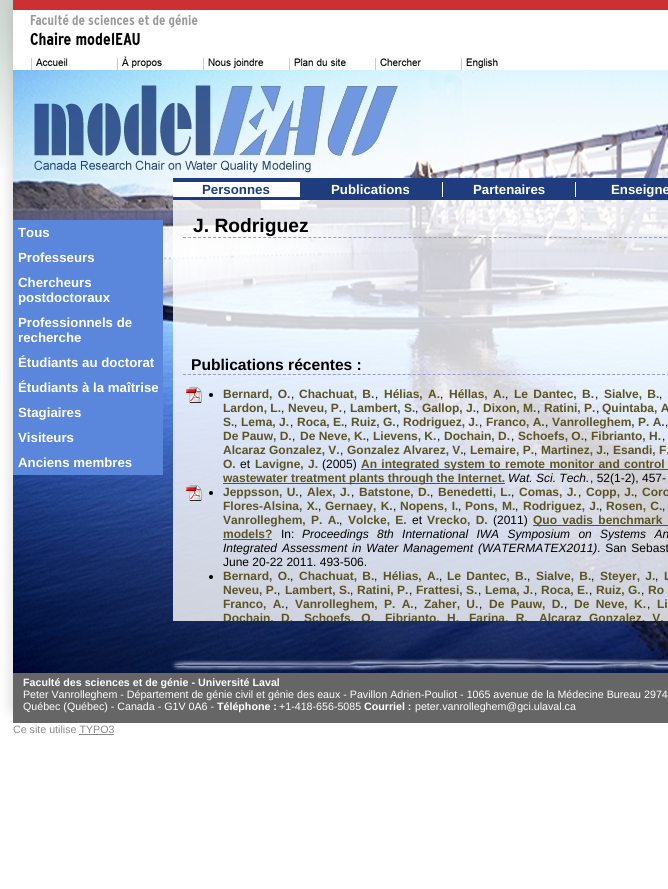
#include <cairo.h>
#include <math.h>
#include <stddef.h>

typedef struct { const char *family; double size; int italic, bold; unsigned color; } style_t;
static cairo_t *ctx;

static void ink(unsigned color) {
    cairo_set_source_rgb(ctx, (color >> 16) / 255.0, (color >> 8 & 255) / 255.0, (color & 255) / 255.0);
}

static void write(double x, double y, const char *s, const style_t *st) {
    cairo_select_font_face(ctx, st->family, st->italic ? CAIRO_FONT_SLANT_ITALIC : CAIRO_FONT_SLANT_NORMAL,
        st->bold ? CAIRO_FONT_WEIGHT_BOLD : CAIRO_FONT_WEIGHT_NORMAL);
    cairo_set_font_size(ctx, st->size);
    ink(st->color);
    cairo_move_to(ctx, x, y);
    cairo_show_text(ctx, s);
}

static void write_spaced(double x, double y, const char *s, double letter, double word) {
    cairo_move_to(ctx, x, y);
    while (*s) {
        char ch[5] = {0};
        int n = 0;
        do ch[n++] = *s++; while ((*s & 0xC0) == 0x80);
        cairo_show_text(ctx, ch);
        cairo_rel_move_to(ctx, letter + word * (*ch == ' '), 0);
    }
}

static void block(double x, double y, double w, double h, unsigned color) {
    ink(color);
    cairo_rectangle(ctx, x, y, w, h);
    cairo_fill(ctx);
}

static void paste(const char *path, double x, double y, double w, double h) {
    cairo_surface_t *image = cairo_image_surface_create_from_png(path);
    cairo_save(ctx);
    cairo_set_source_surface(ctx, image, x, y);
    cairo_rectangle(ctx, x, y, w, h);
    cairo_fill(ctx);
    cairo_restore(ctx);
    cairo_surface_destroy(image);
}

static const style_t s1 = {"Liberation Sans", 13.25, 0, 1, 0xffffff};
static const style_t s2 = {"Liberation Sans", 13.25, 0, 1, 0x1d3c7d};
static const style_t s3 = {"Liberation Sans", 19.25, 0, 1, 0x000000};
static const style_t s4 = {"Liberation Sans", 15.6, 0, 1, 0x000000};
static const style_t s5 = {"Liberation Sans", 12, 0, 0, 0x000000};
static const style_t s6 = {"Liberation Sans", 12, 0, 1, 0x5a5424};
static const style_t s7 = {"Liberation Sans", 12, 1, 0, 0x000000};
static const style_t s8 = {"Liberation Sans", 10.67, 0, 1, 0xffffff};
static const style_t s9 = {"Liberation Sans", 10.67, 0, 0, 0xffffff};
static const style_t s10 = {"Liberation Sans", 10.67, 0, 0, 0x888888};

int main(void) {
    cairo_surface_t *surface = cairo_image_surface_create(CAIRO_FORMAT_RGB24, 668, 889);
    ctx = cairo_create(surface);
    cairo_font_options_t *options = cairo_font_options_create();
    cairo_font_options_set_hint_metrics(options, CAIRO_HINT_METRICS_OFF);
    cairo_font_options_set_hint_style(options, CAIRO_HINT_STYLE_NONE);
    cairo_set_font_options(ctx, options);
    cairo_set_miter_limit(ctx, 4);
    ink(0xffffff);
    cairo_paint(ctx);
    paste("pic1.png", 0, 10, 668, 663);
    paste("pic2.png", 0, 0, 13, 168);
    block(13, 0, 655, 10, 0xcc3033);
    paste("pic3.png", 30, 14, 168, 32);
    paste("pic4.png", 31, 58, 37, 12);
    paste("pic5.png", 117, 56, 45, 14);
    paste("pic6.png", 203, 58, 61, 12);
    paste("pic7.png", 289, 58, 57, 12);
    paste("pic8.png", 375, 58, 46, 12);
    paste("pic9.png", 461, 58, 37, 12);
    paste("pic10.png", 13, 70, 655, 603);
    block(13, 220, 150, 255, 0x5a86db);
    write(18, 237, "Tous", &s1);
    write(18, 262, "Professeurs", &s1);
    write(18, 287, "Chercheurs", &s1);
    write(18, 302, "postdoctoraux", &s1);
    write(18, 327, "Professionnels de", &s1);
    write(18, 342, "recherche", &s1);
    write(18, 367, "Étudiants au doctorat", &s1);
    write(18, 392, "Étudiants à la maîtrise", &s1);
    write(18, 417, "Stagiaires", &s1);
    write(18, 442, "Visiteurs", &s1);
    write(18, 467, "Anciens membres", &s1);
    block(173, 178, 495, 22, 0x1f3d7e);
    block(173, 182, 127, 15, 0xffffff);
    write(202, 194, "Personnes", &s2);
    block(442, 182, 1, 15, 0xffffff);
    write(331, 194, "Publications", &s1);
    block(575, 182, 1, 15, 0xffffff);
    write(473, 194, "Partenaires", &s1);
    write(611, 194, "Enseigne", &s1);
    cairo_set_source_rgba(ctx, 1, 1, 1, 0.8);
    cairo_rectangle(ctx, 173, 200, 495, 421);
    cairo_fill(ctx);
    cairo_new_path(ctx);
    cairo_move_to(ctx, 183, 237.5);
    cairo_line_to(ctx, 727, 237.5);
    ink(0x9999cc);
    cairo_set_line_width(ctx, 1);
    cairo_set_dash(ctx, (double[]){3, 2.01}, 2, 0);
    cairo_stroke(ctx);
    write(193, 232, "J. Rodriguez", &s3);
    cairo_new_path(ctx);
    cairo_move_to(ctx, 183, 374.5);
    cairo_line_to(ctx, 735, 374.5);
    ink(0x9999cc);
    cairo_set_dash(ctx, (double[]){3, 1.99}, 2, 0);
    cairo_stroke(ctx);
    write(191, 370, "Publications récentes :", &s4);
    paste("pic11.png", 186, 387, 16, 16);
    cairo_arc(ctx, 211, 395, 2, 0, 2 * M_PI);
    cairo_fill(ctx);
    cairo_set_font_size(ctx, 12);
    ink(0x5a5424);
    write_spaced(223, 398, "Bernard, O.", 0, 2);
    write(291, 398, ",", &s5);
    cairo_select_font_face(ctx, "Liberation Sans", CAIRO_FONT_SLANT_NORMAL, CAIRO_FONT_WEIGHT_BOLD);
    ink(0x5a5424);
    write_spaced(299, 398, "Chachuat, B.", 0, 2);
    write(375, 398, ",", &s5);
    cairo_select_font_face(ctx, "Liberation Sans", CAIRO_FONT_SLANT_NORMAL, CAIRO_FONT_WEIGHT_BOLD);
    ink(0x5a5424);
    write_spaced(384, 398, "Hélias, A.", 0, 2);
    write(440, 398, ",", &s5);
    cairo_select_font_face(ctx, "Liberation Sans", CAIRO_FONT_SLANT_NORMAL, CAIRO_FONT_WEIGHT_BOLD);
    ink(0x5a5424);
    write_spaced(449, 398, "Héllas, A.", 0, 2);
    write(505, 398, ",", &s5);
    cairo_select_font_face(ctx, "Liberation Sans", CAIRO_FONT_SLANT_NORMAL, CAIRO_FONT_WEIGHT_BOLD);
    ink(0x5a5424);
    write_spaced(514, 398, "Le Dantec, B.", 0, 2);
    write(595, 398, ",", &s5);
    cairo_select_font_face(ctx, "Liberation Sans", CAIRO_FONT_SLANT_NORMAL, CAIRO_FONT_WEIGHT_BOLD);
    ink(0x5a5424);
    write_spaced(604, 398, "Sialve, B.", 0, 2);
    write(659, 398, ",", &s5);
    write(223, 412, "Lardon, L.", &s6);
    write(281, 412, ",", &s5);
    write(288, 412, "Neveu, P.", &s6);
    write(343, 412, ",", &s5);
    write(350, 412, "Lambert, S.", &s6);
    write(415, 412, ",", &s5);
    write(422, 412, "Gallop, J.", &s6);
    write(476, 412, ",", &s5);
    write(483, 412, "Dixon, M.", &s6);
    write(537, 412, ",", &s5);
    write(544, 412, "Ratini, P.", &s6);
    write(596, 412, ",", &s5);
    write(602, 412, "Quintaba, A", &s6);
    write(223, 426, "S.", &s6);
    write(234, 426, ",", &s5);
    write(241, 426, "Lema, J.", &s6);
    write(290, 426, ",", &s5);
    write(297, 426, "Roca, E.", &s6);
    write(344, 426, ",", &s5);
    write(351, 426, "Ruiz, G.", &s6);
    write(396, 426, ",", &s5);
    write(403, 426, "Rodriguez, J.", &s6);
    write(479, 426, ",", &s5);
    write(486, 426, "Franco, A.", &s6);
    write(545, 426, ",", &s5);
    write(552, 426, "Vanrolleghem, P. A.", &s6);
    write(665, 426, ",", &s5);
    write(223, 440, "De Pauw, D.", &s6);
    write(292, 440, ",", &s5);
    write(300, 440, "De Neve, K.", &s6);
    write(366, 440, ",", &s5);
    write(373, 440, "Lievens, K.", &s6);
    write(437, 440, ",", &s5);
    write(444, 440, "Dochain, D.", &s6);
    write(511, 440, ",", &s5);
    write(518, 440, "Schoefs, O.", &s6);
    write(584, 440, ",", &s5);
    write(591, 440, "Fibrianto, H.", &s6);
    write(662, 440, ",", &s5);
    write(223, 454, "Alcaraz Gonzalez, V.", &s6);
    write(340, 454, ",", &s5);
    write(347, 454, "Gonzalez Alvarez, V.", &s6);
    write(463, 454, ",", &s5);
    write(470, 454, "Lemaire, P.", &s6);
    write(534, 454, ",", &s5);
    write(541, 454, "Martinez, J.", &s6);
    write(606, 454, ",", &s5);
    write(613, 454, "Esandi, F.", &s6);
    write(223, 468, "O.", &s6);
    write(240, 468, "et", &s5);
    cairo_select_font_face(ctx, "Liberation Sans", CAIRO_FONT_SLANT_NORMAL, CAIRO_FONT_WEIGHT_BOLD);
    ink(0x5a5424);
    write_spaced(255, 468, "Lavigne, J.", 0, 1);
    write(322, 468, "(2005)", &s5);
    block(361, 469, 307, 1, 0x5a5424);
    cairo_select_font_face(ctx, "Liberation Sans", CAIRO_FONT_SLANT_NORMAL, CAIRO_FONT_WEIGHT_BOLD);
    write_spaced(361, 468, "An integrated system to remote monitor and control", 0, 1);
    block(223, 483, 282, 1, 0x5a5424);
    write(223, 482, "wastewater treatment plants through the Internet.", &s6);
    write(508, 482, "Wat. Sci. Tech.", &s7);
    write(590, 482, ", 52(1-2), 457-", &s5);
    paste("pic12.png", 186, 485, 16, 16);
    cairo_arc(ctx, 211, 493, 2, 0, 2 * M_PI);
    cairo_fill(ctx);
    cairo_select_font_face(ctx, "Liberation Sans", CAIRO_FONT_SLANT_NORMAL, CAIRO_FONT_WEIGHT_BOLD);
    ink(0x5a5424);
    write_spaced(223, 496, "Jeppsson, U.", 0, 1);
    write(299, 496, ",", &s5);
    cairo_select_font_face(ctx, "Liberation Sans", CAIRO_FONT_SLANT_NORMAL, CAIRO_FONT_WEIGHT_BOLD);
    ink(0x5a5424);
    write_spaced(307, 496, "Alex, J.", 0, 1);
    write(351, 496, ",", &s5);
    cairo_select_font_face(ctx, "Liberation Sans", CAIRO_FONT_SLANT_NORMAL, CAIRO_FONT_WEIGHT_BOLD);
    ink(0x5a5424);
    write_spaced(359, 496, "Batstone, D.", 0, 1);
    write(430, 496, ",", &s5);
    cairo_select_font_face(ctx, "Liberation Sans", CAIRO_FONT_SLANT_NORMAL, CAIRO_FONT_WEIGHT_BOLD);
    ink(0x5a5424);
    write_spaced(438, 496, "Benedetti, L.", 0, 1);
    write(511, 496, ",", &s5);
    cairo_select_font_face(ctx, "Liberation Sans", CAIRO_FONT_SLANT_NORMAL, CAIRO_FONT_WEIGHT_BOLD);
    ink(0x5a5424);
    write_spaced(519, 496, "Comas, J.", 0, 1);
    write(578, 496, ",", &s5);
    cairo_select_font_face(ctx, "Liberation Sans", CAIRO_FONT_SLANT_NORMAL, CAIRO_FONT_WEIGHT_BOLD);
    ink(0x5a5424);
    write_spaced(586, 496, "Copp, J.", 0, 1);
    write(634, 496, ",", &s5);
    cairo_select_font_face(ctx, "Liberation Sans", CAIRO_FONT_SLANT_NORMAL, CAIRO_FONT_WEIGHT_BOLD);
    ink(0x5a5424);
    write_spaced(642, 496, "Coro", 0, 1);
    write_spaced(223, 510, "Flores-Alsina, X.", 0, 1);
    write(318, 510, ",", &s5);
    cairo_select_font_face(ctx, "Liberation Sans", CAIRO_FONT_SLANT_NORMAL, CAIRO_FONT_WEIGHT_BOLD);
    ink(0x5a5424);
    write_spaced(325, 510, "Gernaey, K.", 0, 1);
    write(393, 510, ",", &s5);
    cairo_select_font_face(ctx, "Liberation Sans", CAIRO_FONT_SLANT_NORMAL, CAIRO_FONT_WEIGHT_BOLD);
    ink(0x5a5424);
    write_spaced(400, 510, "Nopens, I.", 0, 1);
    write(458, 510, ",", &s5);
    cairo_select_font_face(ctx, "Liberation Sans", CAIRO_FONT_SLANT_NORMAL, CAIRO_FONT_WEIGHT_BOLD);
    ink(0x5a5424);
    write_spaced(465, 510, "Pons, M.", 0, 1);
    write(515, 510, ",", &s5);
    cairo_select_font_face(ctx, "Liberation Sans", CAIRO_FONT_SLANT_NORMAL, CAIRO_FONT_WEIGHT_BOLD);
    ink(0x5a5424);
    write_spaced(523, 510, "Rodriguez, J.", 0, 1);
    write(599, 510, ",", &s5);
    cairo_select_font_face(ctx, "Liberation Sans", CAIRO_FONT_SLANT_NORMAL, CAIRO_FONT_WEIGHT_BOLD);
    ink(0x5a5424);
    write_spaced(606, 510, "Rosen, C.", 0, 1);
    write(662, 510, ",", &s5);
    cairo_select_font_face(ctx, "Liberation Sans", CAIRO_FONT_SLANT_NORMAL, CAIRO_FONT_WEIGHT_BOLD);
    ink(0x5a5424);
    write_spaced(223, 524, "Vanrolleghem, P. A.", 0, 2);
    write(339, 524, ",", &s5);
    cairo_select_font_face(ctx, "Liberation Sans", CAIRO_FONT_SLANT_NORMAL, CAIRO_FONT_WEIGHT_BOLD);
    ink(0x5a5424);
    write_spaced(348, 524, "Volcke, E.", 0, 2);
    write(412, 524, "et", &s5);
    cairo_select_font_face(ctx, "Liberation Sans", CAIRO_FONT_SLANT_NORMAL, CAIRO_FONT_WEIGHT_BOLD);
    ink(0x5a5424);
    write_spaced(427, 524, "Vrecko, D.", 0, 2);
    write(493, 524, "(2011)", &s5);
    block(533, 525, 135, 1, 0x5a5424);
    cairo_select_font_face(ctx, "Liberation Sans", CAIRO_FONT_SLANT_NORMAL, CAIRO_FONT_WEIGHT_BOLD);
    write_spaced(533, 524, "Quo vadis benchmark", 0, 2);
    write(223, 538, "models?", &s6);
    block(223, 539, 49, 1, 0x5a5424);
    write(281, 538, "In:", &s5);
    cairo_select_font_face(ctx, "Liberation Sans", CAIRO_FONT_SLANT_ITALIC, CAIRO_FONT_WEIGHT_NORMAL);
    write_spaced(302, 538, "Proceedings 8th International IWA Symposium on Systems An", 0, 5);
    write_spaced(223, 552, "Integrated Assessment in Water Management (WATERMATEX2011)", 0, 1.5);
    cairo_select_font_face(ctx, "Liberation Sans", CAIRO_FONT_SLANT_NORMAL, CAIRO_FONT_WEIGHT_NORMAL);
    write_spaced(597, 552, ". San Sebast", 0, 1.5);
    write(223, 566, "June 20-22 2011. 493-506.", &s5);
    cairo_new_path(ctx);
    cairo_arc(ctx, 211, 577, 2, 0, 2 * M_PI);
    cairo_fill(ctx);
    cairo_select_font_face(ctx, "Liberation Sans", CAIRO_FONT_SLANT_NORMAL, CAIRO_FONT_WEIGHT_BOLD);
    ink(0x5a5424);
    write_spaced(223, 580, "Bernard, O.", 0, 2);
    write(290, 580, ",", &s5);
    cairo_select_font_face(ctx, "Liberation Sans", CAIRO_FONT_SLANT_NORMAL, CAIRO_FONT_WEIGHT_BOLD);
    ink(0x5a5424);
    write_spaced(299, 580, "Chachuat, B.", 0, 2);
    write(374, 580, ",", &s5);
    cairo_select_font_face(ctx, "Liberation Sans", CAIRO_FONT_SLANT_NORMAL, CAIRO_FONT_WEIGHT_BOLD);
    ink(0x5a5424);
    write_spaced(383, 580, "Hélias, A.", 0, 2);
    write(439, 580, ",", &s5);
    cairo_select_font_face(ctx, "Liberation Sans", CAIRO_FONT_SLANT_NORMAL, CAIRO_FONT_WEIGHT_BOLD);
    ink(0x5a5424);
    write_spaced(447, 580, "Le Dantec, B.", 0, 2);
    write(527, 580, ",", &s5);
    cairo_select_font_face(ctx, "Liberation Sans", CAIRO_FONT_SLANT_NORMAL, CAIRO_FONT_WEIGHT_BOLD);
    ink(0x5a5424);
    write_spaced(536, 580, "Sialve, B.", 0, 2);
    write(591, 580, ",", &s5);
    cairo_select_font_face(ctx, "Liberation Sans", CAIRO_FONT_SLANT_NORMAL, CAIRO_FONT_WEIGHT_BOLD);
    ink(0x5a5424);
    write_spaced(600, 580, "Steyer, J.", 0, 2);
    write(655, 580, ",", &s5);
    cairo_select_font_face(ctx, "Liberation Sans", CAIRO_FONT_SLANT_NORMAL, CAIRO_FONT_WEIGHT_BOLD);
    ink(0x5a5424);
    write_spaced(664, 580, "L", 0, 2);
    write(223, 594, "Neveu, P.", &s6);
    write(277, 594, ",", &s5);
    write(285, 594, "Lambert, S.", &s6);
    write(350, 594, ",", &s5);
    write(357, 594, "Ratini, P.", &s6);
    write(409, 594, ",", &s5);
    write(416, 594, "Frattesi, S.", &s6);
    write(478, 594, ",", &s5);
    write(485, 594, "Lema, J.", &s6);
    write(534, 594, ",", &s5);
    write(541, 594, "Roca, E.", &s6);
    write(589, 594, ",", &s5);
    write(596, 594, "Ruiz, G.", &s6);
    write(641, 594, ",", &s5);
    write(648, 594, "Ro", &s6);
    write_spaced(223, 608, "Franco, A.", 0, 3);
    write(285, 608, ",", &s5);
    cairo_select_font_face(ctx, "Liberation Sans", CAIRO_FONT_SLANT_NORMAL, CAIRO_FONT_WEIGHT_BOLD);
    ink(0x5a5424);
    write_spaced(295, 608, "Vanrolleghem, P. A.", 0, 3);
    write(414, 608, ",", &s5);
    cairo_select_font_face(ctx, "Liberation Sans", CAIRO_FONT_SLANT_NORMAL, CAIRO_FONT_WEIGHT_BOLD);
    ink(0x5a5424);
    write_spaced(424, 608, "Zaher, U.", 0, 3);
    write(479, 608, ",", &s5);
    cairo_select_font_face(ctx, "Liberation Sans", CAIRO_FONT_SLANT_NORMAL, CAIRO_FONT_WEIGHT_BOLD);
    ink(0x5a5424);
    write_spaced(489, 608, "De Pauw, D.", 0, 3);
    write(564, 608, ",", &s5);
    cairo_select_font_face(ctx, "Liberation Sans", CAIRO_FONT_SLANT_NORMAL, CAIRO_FONT_WEIGHT_BOLD);
    ink(0x5a5424);
    write_spaced(574, 608, "De Neve, K.", 0, 3);
    write(647, 608, ",", &s5);
    cairo_select_font_face(ctx, "Liberation Sans", CAIRO_FONT_SLANT_NORMAL, CAIRO_FONT_WEIGHT_BOLD);
    ink(0x5a5424);
    write_spaced(657, 608, "Li", 0, 3);
    cairo_save(ctx);
    cairo_rectangle(ctx, 173, 200, 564, 421);
    cairo_clip(ctx);
    write_spaced(223, 622, "Dochain, D.", 0, 4);
    write_spaced(304, 622, "Schoefs, O.", 0, 4);
    write_spaced(385, 622, "Fibrianto, H.", 0, 4);
    write_spaced(469, 622, "Farina, R.", 0, 4);
    write_spaced(539, 622, "Alcaraz Gonzalez, V.", 0, 4);
    cairo_restore(ctx);
    block(13, 673, 655, 50, 0x666666);
    paste("pic13.png", 0, 673, 13, 50);
    write(23, 686, "Faculté des sciences et de génie - Université Laval", &s8);
    write(23, 698, "Peter Vanrolleghem - Département de génie civil et génie des eaux - Pavillon Adrien-Pouliot - 1065 avenue de la Médecine Bureau 2974", &s9);
    write(23, 710, "Québec (Québec) - Canada - G1V 0A6 -", &s9);
    write(217, 710, "Téléphone :", &s8);
    write(279, 710, "+1-418-656-5085", &s9);
    write(364, 710, "Courriel :", &s8);
    write(415, 710, "peter.vanrolleghem@gci.ulaval.ca", &s9);
    write(13, 733, "Ce site utilise TYPO3", &s10);
    block(79, 734, 35, 1, 0x888888);
    cairo_surface_write_to_png(surface, "screenshot.png");
    cairo_font_options_destroy(options);
    cairo_destroy(ctx);
    cairo_surface_destroy(surface);
    return 0;
}
